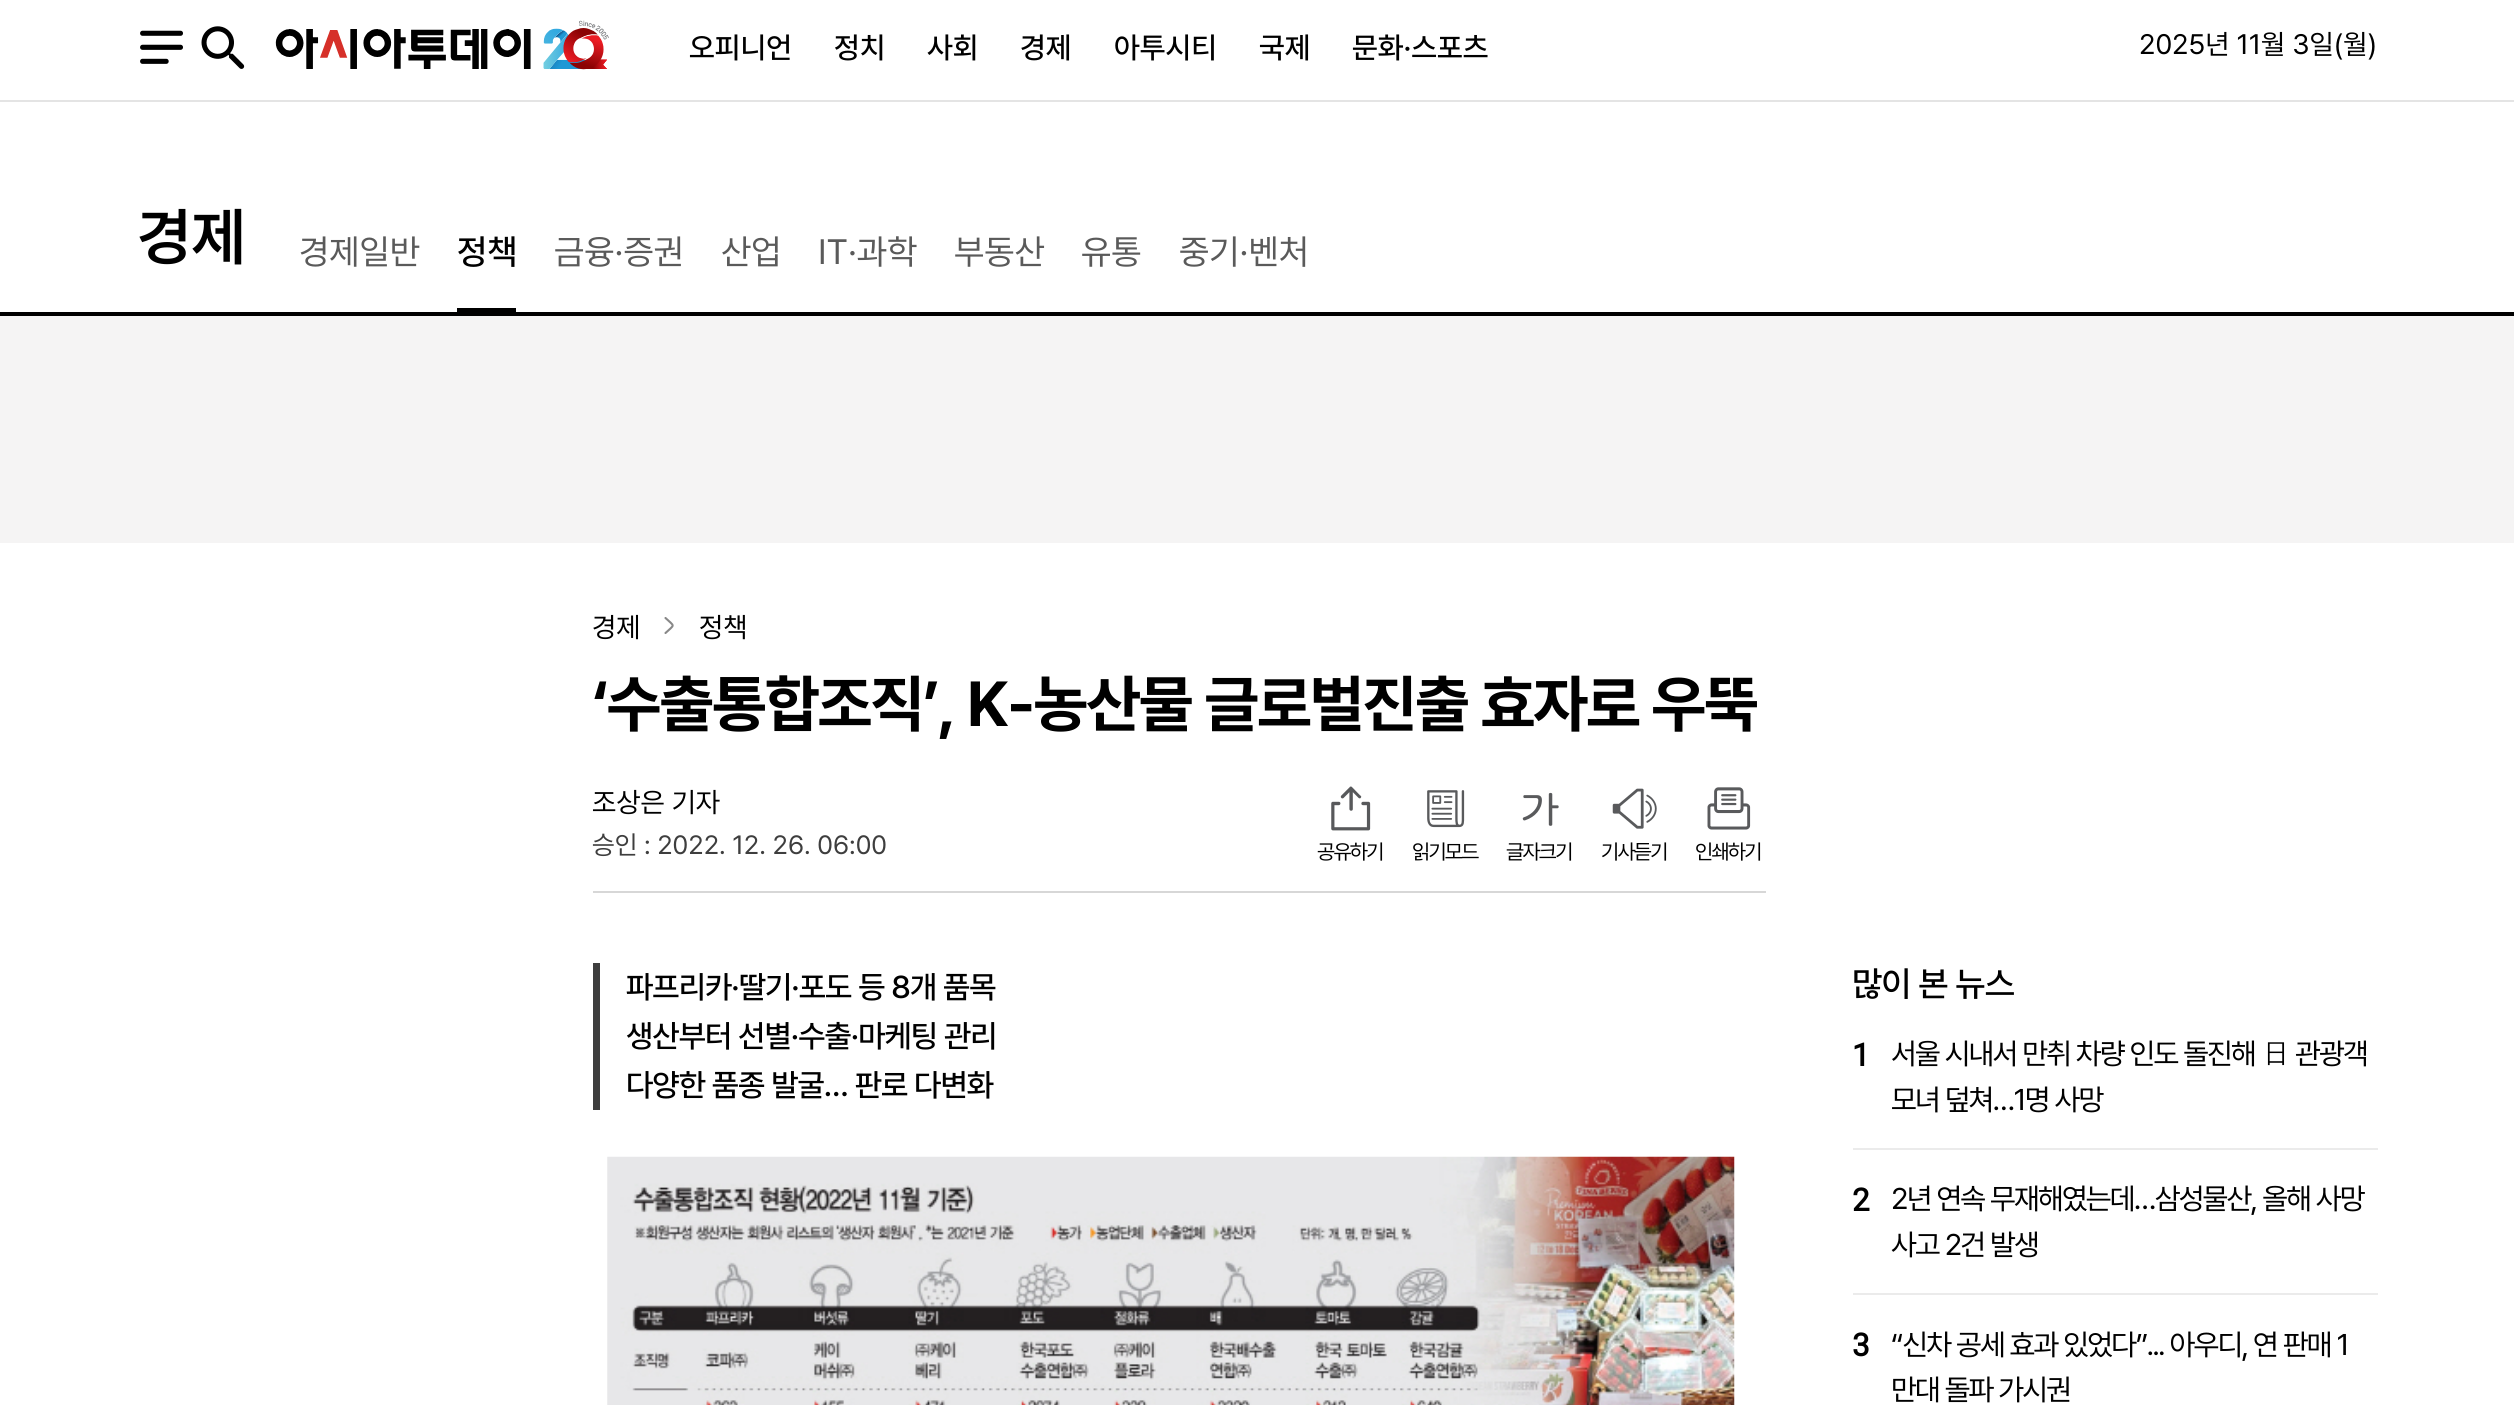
#include <cairo.h>
#include <math.h>
#include <stddef.h>

typedef struct { const char *family; double size; int italic, bold; unsigned color; } style_t;
static cairo_t *ctx;

static void ink(unsigned color) {
    cairo_set_source_rgb(ctx, (color >> 16) / 255.0, (color >> 8 & 255) / 255.0, (color & 255) / 255.0);
}

static void write(double x, double y, const char *s, const style_t *st) {
    cairo_select_font_face(ctx, st->family, st->italic ? CAIRO_FONT_SLANT_ITALIC : CAIRO_FONT_SLANT_NORMAL,
        st->bold ? CAIRO_FONT_WEIGHT_BOLD : CAIRO_FONT_WEIGHT_NORMAL);
    cairo_set_font_size(ctx, st->size);
    ink(st->color);
    cairo_move_to(ctx, x, y);
    cairo_show_text(ctx, s);
}

static void write_spaced(double x, double y, const char *s, double letter, double word) {
    cairo_move_to(ctx, x, y);
    while (*s) {
        char ch[5] = {0};
        int n = 0;
        do ch[n++] = *s++; while ((*s & 0xC0) == 0x80);
        cairo_show_text(ctx, ch);
        cairo_rel_move_to(ctx, letter + word * (*ch == ' '), 0);
    }
}

static void block(double x, double y, double w, double h, unsigned color) {
    ink(color);
    cairo_rectangle(ctx, x, y, w, h);
    cairo_fill(ctx);
}

static void paste(const char *path, double x, double y, double w, double h) {
    cairo_surface_t *image = cairo_image_surface_create_from_png(path);
    cairo_save(ctx);
    cairo_set_source_surface(ctx, image, x, y);
    cairo_rectangle(ctx, x, y, w, h);
    cairo_fill(ctx);
    cairo_restore(ctx);
    cairo_surface_destroy(image);
}

static const style_t s1 = {"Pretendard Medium", 29.75, 0, 0, 0x000000};
static const style_t s2 = {"Pretendard", 28, 0, 0, 0x000000};
static const style_t s3 = {"Pretendard SemiBold", 63, 0, 0, 0x000000};
static const style_t s4 = {"Pretendard", 35, 0, 0, 0x5a5a5a};
static const style_t s5 = {"Pretendard Medium", 35, 0, 0, 0x000000};
static const style_t s6 = {"Pretendard", 26.25, 0, 0, 0x3e3e3e};
static const style_t s7 = {"Roboto", 31.5, 0, 1, 0x000000};

int main(void) {
    cairo_surface_t *surface = cairo_image_surface_create(CAIRO_FORMAT_RGB24, 2514, 1405);
    ctx = cairo_create(surface);
    cairo_font_options_t *options = cairo_font_options_create();
    cairo_font_options_set_hint_metrics(options, CAIRO_HINT_METRICS_OFF);
    cairo_font_options_set_hint_style(options, CAIRO_HINT_STYLE_NONE);
    cairo_set_font_options(ctx, options);
    cairo_set_miter_limit(ctx, 4);
    ink(0xffffff);
    cairo_paint(ctx);
    block(0, 312, 2514, 4, 0x000000);
    block(0, 100, 2514, 2, 0xe4e4e4);
    paste("pic1.png", 140, 30, 43, 34);
    paste("pic2.png", 201, 26, 44, 43);
    paste("pic3.png", 275, 20, 334, 50);
    write(689, 58, "오피니언", &s1);
    write(834, 58, "정치", &s1);
    write(927, 58, "사회", &s1);
    write(1020, 58, "경제", &s1);
    write(1114, 58, "아투시티", &s1);
    write(1259, 58, "국제", &s1);
    write(1352, 58, "문화·스포츠", &s1);
    write(2139, 54, "2025년 11월 3일(월)", &s2);
    write(137, 259, "경제", &s3);
    write(299, 264, "경제일반", &s4);
    block(457, 308, 59, 4, 0x000000);
    write(457, 264, "정책", &s5);
    write(554, 264, "금융·증권", &s4);
    write(721, 264, "산업", &s4);
    write(818, 264, "IT·과학", &s4);
    write(954, 264, "부동산", &s4);
    write(1081, 264, "유통", &s4);
    write(1179, 264, "중기·벤처", &s4);
    block(0, 316, 2514, 227, 0xf5f4f4);
    block(593, 891, 1173, 2, 0xd7d7d7);
    write(592, 637, "경제", &s2);
    cairo_new_path(ctx);
    cairo_move_to(ctx, 665.5, 618);
    cairo_curve_to(ctx, 675, 627, 675, 624, 665.5, 633);
    ink(0x888888);
    cairo_set_line_width(ctx, 2.1);
    cairo_set_line_cap(ctx, CAIRO_LINE_CAP_ROUND);
    cairo_stroke(ctx);
    write(699, 637, "정책", &s2);
    cairo_select_font_face(ctx, "Pretendard", CAIRO_FONT_SLANT_NORMAL, CAIRO_FONT_WEIGHT_BOLD);
    cairo_set_font_size(ctx, 63);
    write_spaced(592, 726, "‘수출통합조직’, K-농산물 글로벌진출 효자로 우뚝", -1.75, 0);
    write(592, 812, "조상은 기자", &s2);
    write(592, 854, "승인 : 2022. 12. 26. 06:00", &s6);
    paste("pic4.png", 1331, 786, 40, 45);
    cairo_set_font_size(ctx, 21);
    ink(0x000000);
    write_spaced(1317, 859, "공유하기", -1.75, 0);
    paste("pic5.png", 1427, 790, 38, 38);
    write_spaced(1412, 859, "읽기모드", -1.75, 0);
    paste("pic6.png", 1522, 792, 37, 34);
    write_spaced(1506, 859, "글자크기", -1.75, 0);
    paste("pic7.png", 1612, 788, 45, 41);
    write_spaced(1601, 859, "기사듣기", -1.75, 0);
    paste("pic8.png", 1707, 787, 44, 43);
    write_spaced(1695, 859, "인쇄하기", -1.75, 0);
    block(593, 963, 7, 147, 0x3e3e3e);
    cairo_select_font_face(ctx, "Pretendard Medium", CAIRO_FONT_SLANT_NORMAL, CAIRO_FONT_WEIGHT_NORMAL);
    cairo_set_font_size(ctx, 31.5);
    ink(0x000000);
    write_spaced(626, 998, "파프리카·딸기·포도 등 8개 품목", -0.9, 0);
    write_spaced(626, 1047, "생산부터 선별·수출·마케팅 관리", -0.9, 0);
    write_spaced(626, 1096, "다양한 품종 발굴… 판로 다변화", -0.9, 0);
    paste("pic9.png", 607, 1156, 1128, 249);
    cairo_set_font_size(ctx, 35);
    write_spaced(1852, 996, "많이 본 뉴스", -0.9, 0);
    block(1853, 1148, 525, 2, 0xebebeb);
    write(1852, 1066, "1", &s7);
    cairo_select_font_face(ctx, "Pretendard", CAIRO_FONT_SLANT_NORMAL, CAIRO_FONT_WEIGHT_NORMAL);
    cairo_set_font_size(ctx, 29.75);
    write_spaced(1891, 1064, "서울 시내서 만취 차량 인도 돌진해", -1.75, 0);
    cairo_select_font_face(ctx, "Gulim", CAIRO_FONT_SLANT_NORMAL, CAIRO_FONT_WEIGHT_NORMAL);
    write_spaced(2261, 1064, "日", -1.75, 0);
    cairo_select_font_face(ctx, "Pretendard", CAIRO_FONT_SLANT_NORMAL, CAIRO_FONT_WEIGHT_NORMAL);
    write_spaced(2295, 1064, "관광객", -1.75, 0);
    write_spaced(1891, 1110, "모녀 덮쳐…1명 사망", -1.75, 0);
    block(1853, 1293, 525, 2, 0xebebeb);
    write(1852, 1211, "2", &s7);
    cairo_select_font_face(ctx, "Pretendard", CAIRO_FONT_SLANT_NORMAL, CAIRO_FONT_WEIGHT_NORMAL);
    cairo_set_font_size(ctx, 29.75);
    write_spaced(1891, 1209, "2년 연속 무재해였는데…삼성물산, 올해 사망", -1.75, 0);
    write_spaced(1891, 1255, "사고 2건 발생", -1.75, 0);
    write(1852, 1356, "3", &s7);
    cairo_select_font_face(ctx, "Pretendard", CAIRO_FONT_SLANT_NORMAL, CAIRO_FONT_WEIGHT_NORMAL);
    cairo_set_font_size(ctx, 29.75);
    write_spaced(1891, 1355, "“신차 공세 효과 있었다”... 아우디, 연 판매 1", -1.75, 0);
    write_spaced(1891, 1400, "만대 돌파 가시권", -1.75, 0);
    cairo_surface_write_to_png(surface, "screenshot.png");
    cairo_font_options_destroy(options);
    cairo_destroy(ctx);
    cairo_surface_destroy(surface);
    return 0;
}
